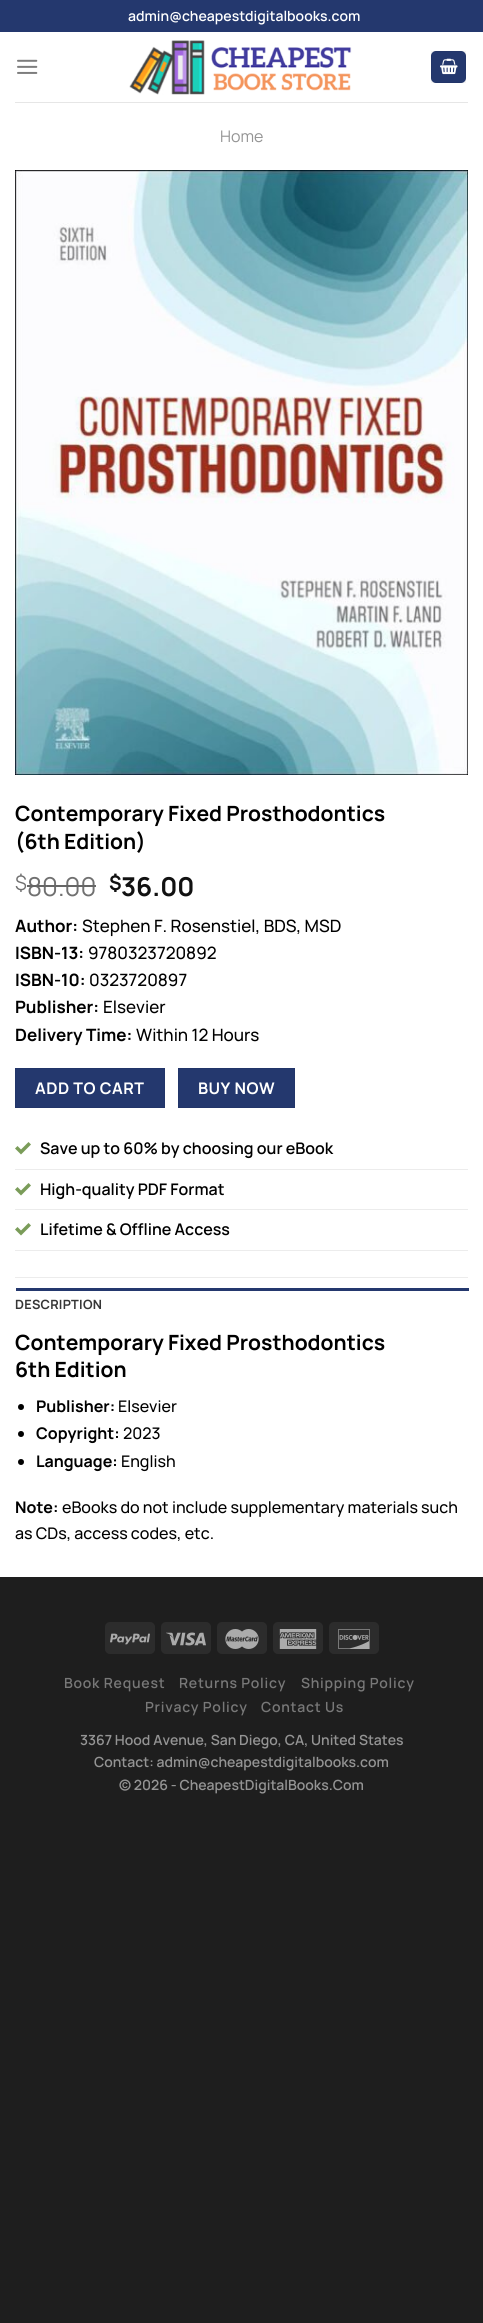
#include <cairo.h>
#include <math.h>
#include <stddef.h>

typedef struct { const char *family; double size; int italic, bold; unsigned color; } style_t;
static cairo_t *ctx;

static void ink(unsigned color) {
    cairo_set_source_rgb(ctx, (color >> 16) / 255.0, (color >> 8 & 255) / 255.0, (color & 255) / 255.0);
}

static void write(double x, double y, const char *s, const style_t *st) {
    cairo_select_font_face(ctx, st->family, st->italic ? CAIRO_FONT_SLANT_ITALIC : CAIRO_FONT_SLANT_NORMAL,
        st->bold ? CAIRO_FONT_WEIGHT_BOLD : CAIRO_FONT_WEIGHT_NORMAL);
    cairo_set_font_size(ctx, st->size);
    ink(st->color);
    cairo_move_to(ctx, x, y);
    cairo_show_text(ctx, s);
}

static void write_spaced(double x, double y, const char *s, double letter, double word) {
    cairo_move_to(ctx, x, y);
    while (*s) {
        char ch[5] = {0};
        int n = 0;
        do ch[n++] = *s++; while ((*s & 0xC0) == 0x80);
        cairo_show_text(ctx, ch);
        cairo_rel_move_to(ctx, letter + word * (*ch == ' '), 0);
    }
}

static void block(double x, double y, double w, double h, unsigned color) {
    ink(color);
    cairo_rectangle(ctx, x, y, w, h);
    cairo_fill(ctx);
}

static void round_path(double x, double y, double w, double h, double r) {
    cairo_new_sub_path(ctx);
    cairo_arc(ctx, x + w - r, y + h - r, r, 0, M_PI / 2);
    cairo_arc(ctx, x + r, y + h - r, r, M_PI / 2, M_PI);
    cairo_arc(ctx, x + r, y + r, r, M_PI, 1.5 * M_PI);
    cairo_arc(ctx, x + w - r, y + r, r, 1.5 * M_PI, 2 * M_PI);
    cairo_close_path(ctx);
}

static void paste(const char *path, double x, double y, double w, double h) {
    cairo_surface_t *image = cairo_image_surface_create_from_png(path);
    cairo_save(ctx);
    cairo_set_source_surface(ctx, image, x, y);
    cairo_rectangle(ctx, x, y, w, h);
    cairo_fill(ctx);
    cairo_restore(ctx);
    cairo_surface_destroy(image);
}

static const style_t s1 = {"Manrope SemiBold", 14, 0, 0, 0xffffff};
static const style_t s2 = {"Manrope", 16, 0, 0, 0x949494};
static const style_t s3 = {"Manrope", 21, 0, 1, 0x000000};
static const style_t s4 = {"Manrope", 20, 0, 0, 0x707070};
static const style_t s5 = {"Manrope", 26, 0, 0, 0x707070};
static const style_t s6 = {"Manrope", 20, 0, 1, 0x111111};
static const style_t s7 = {"Manrope", 26, 0, 1, 0x111111};
static const style_t s8 = {"Manrope", 17, 0, 1, 0x000000};
static const style_t s9 = {"Manrope Medium", 17, 0, 0, 0x000000};
static const style_t s10 = {"Manrope SemiBold", 16, 0, 0, 0x000000};
static const style_t s11 = {"Manrope", 16, 0, 1, 0x000000};
static const style_t s12 = {"Manrope Medium", 16, 0, 0, 0x000000};
static const style_t s13 = {"Manrope SemiBold", 14, 0, 0, 0x949494};

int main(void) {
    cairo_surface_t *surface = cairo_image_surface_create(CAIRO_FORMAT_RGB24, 483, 2323);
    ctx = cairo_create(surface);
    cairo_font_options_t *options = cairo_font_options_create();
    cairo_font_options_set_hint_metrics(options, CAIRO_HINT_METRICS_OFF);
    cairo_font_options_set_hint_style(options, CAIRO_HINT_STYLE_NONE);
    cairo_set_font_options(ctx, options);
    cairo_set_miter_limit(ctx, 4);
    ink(0x1e1e1e);
    cairo_paint(ctx);
    block(0, 32, 483, 1545, 0xffffff);
    block(0, 0, 483, 32, 0x24386e);
    write(128, 21, "admin@cheapestdigitalbooks.com", &s1);
    paste("pic1.png", 17, 59, 21, 15);
    paste("pic2.png", 129, 40, 223, 55);
    ink(0x24386e);
    round_path(431, 51, 35, 32, 5);
    cairo_fill(ctx);
    cairo_rectangle(ctx, 431.5, 51.5, 34, 31);
    cairo_set_source_rgba(ctx, 0, 0, 0, 0.05);
    cairo_set_line_width(ctx, 1);
    cairo_stroke(ctx);
    paste("pic3.png", 440, 58, 18, 17);
    block(15, 102, 453, 1, 0xe6e6e6);
    write(220, 142, "Home", &s2);
    paste("pic4.png", 15, 170, 453, 605);
    write(15, 821, "Contemporary Fixed Prosthodontics", &s3);
    write(15, 849, "(6th Edition)", &s3);
    write(15, 890, "$", &s4);
    write(27, 896, "80.00", &s5);
    block(27, 885, 69, 2, 0x666666);
    write(109, 890, "$", &s6);
    write(121, 896, "36.00", &s7);
    write(15, 932, "Author:", &s8);
    write(82, 932, "Stephen F. Rosenstiel, BDS, MSD", &s9);
    write(15, 959, "ISBN-13:", &s8);
    write(88, 959, "9780323720892", &s9);
    write(15, 986, "ISBN-10:", &s8);
    write(89, 986, "0323720897", &s9);
    write(15, 1013, "Publisher:", &s8);
    write(103, 1013, "Elsevier", &s9);
    write(15, 1041, "Delivery Time:", &s8);
    write(136, 1041, "Within 12 Hours", &s9);
    ink(0x24386e);
    cairo_rectangle(ctx, 15.5, 1068.5, 149, 39);
    cairo_fill_preserve(ctx);
    ink(0x223569);
    cairo_stroke(ctx);
    cairo_select_font_face(ctx, "Manrope", CAIRO_FONT_SLANT_NORMAL, CAIRO_FONT_WEIGHT_BOLD);
    cairo_set_font_size(ctx, 16);
    ink(0xffffff);
    write_spaced(35, 1094, "ADD TO CART", 0.5, 0);
    ink(0x24386e);
    cairo_rectangle(ctx, 178.5, 1068.5, 116, 39);
    cairo_fill_preserve(ctx);
    ink(0x223569);
    cairo_stroke(ctx);
    ink(0xffffff);
    write_spaced(198, 1094, "BUY NOW", 0.5, 0);
    block(15, 1169, 453, 1, 0xececec);
    paste("pic5.png", 15, 1142, 16, 13);
    write(40, 1154, "Save up to 60% by choosing our eBook", &s10);
    block(15, 1209, 453, 1, 0xececec);
    paste("pic5.png", 15, 1183, 16, 13);
    write(40, 1195, "High-quality PDF Format", &s10);
    block(15, 1250, 453, 1, 0xececec);
    paste("pic5.png", 15, 1223, 16, 13);
    write(40, 1235, "Lifetime & Offline Access", &s10);
    block(15, 1277, 453, 1, 0xececec);
    block(16, 1288, 453, 3, 0x24386e);
    cairo_select_font_face(ctx, "Manrope", CAIRO_FONT_SLANT_NORMAL, CAIRO_FONT_WEIGHT_BOLD);
    cairo_set_font_size(ctx, 12.75);
    ink(0x363636);
    write_spaced(15, 1309, "DESCRIPTION", 0.25, 0);
    write(15, 1350, "Contemporary Fixed Prosthodontics", &s3);
    write(15, 1377, "6th Edition", &s3);
    cairo_new_path(ctx);
    cairo_arc(ctx, 21, 1407, 3, 0, 2 * M_PI);
    cairo_fill(ctx);
    write(36, 1412, "Publisher:", &s11);
    write(118, 1412, "Elsevier", &s12);
    cairo_new_path(ctx);
    cairo_arc(ctx, 21, 1434, 3, 0, 2 * M_PI);
    cairo_fill(ctx);
    write(36, 1439, "Copyright:", &s11);
    write(123, 1439, "2023", &s12);
    cairo_new_path(ctx);
    cairo_arc(ctx, 21, 1462, 3, 0, 2 * M_PI);
    cairo_fill(ctx);
    write(36, 1467, "Language:", &s11);
    write(121, 1467, "English", &s12);
    write(15, 1513, "Note:", &s11);
    write(62, 1513, "eBooks do not include supplementary materials such", &s12);
    write(15, 1539, "as CDs, access codes, etc.", &s12);
    ink(0x2c2c2c);
    round_path(105, 1622, 50, 32, 5);
    cairo_fill(ctx);
    paste("pic6.png", 110, 1633, 40, 12);
    round_path(161, 1622, 50, 32, 5);
    cairo_fill(ctx);
    paste("pic7.png", 166, 1632, 40, 14);
    round_path(217, 1622, 50, 32, 5);
    cairo_fill(ctx);
    paste("pic8.png", 225, 1629, 34, 20);
    round_path(273, 1622, 50, 32, 5);
    cairo_fill(ctx);
    paste("pic9.png", 279, 1629, 38, 20);
    round_path(329, 1622, 50, 32, 5);
    cairo_fill(ctx);
    paste("pic10.png", 338, 1629, 32, 20);
    cairo_select_font_face(ctx, "Manrope SemiBold", CAIRO_FONT_SLANT_NORMAL, CAIRO_FONT_WEIGHT_NORMAL);
    cairo_set_font_size(ctx, 14);
    ink(0x787878);
    write_spaced(64, 1688, "Book Request", 0.75, 0);
    write_spaced(179, 1688, "Returns Policy", 0.75, 0);
    write_spaced(301, 1688, "Shipping Policy", 0.75, 0);
    write_spaced(145, 1712, "Privacy Policy", 0.75, 0);
    write_spaced(261, 1712, "Contact Us", 0.75, 0);
    write(80, 1745, "3367 Hood Avenue, San Diego, CA, United States", &s13);
    write(94, 1767, "Contact: admin@cheapestdigitalbooks.com", &s13);
    write(119, 1790, "© 2026 - CheapestDigitalBooks.Com", &s13);
    cairo_surface_write_to_png(surface, "screenshot.png");
    cairo_font_options_destroy(options);
    cairo_destroy(ctx);
    cairo_surface_destroy(surface);
    return 0;
}
